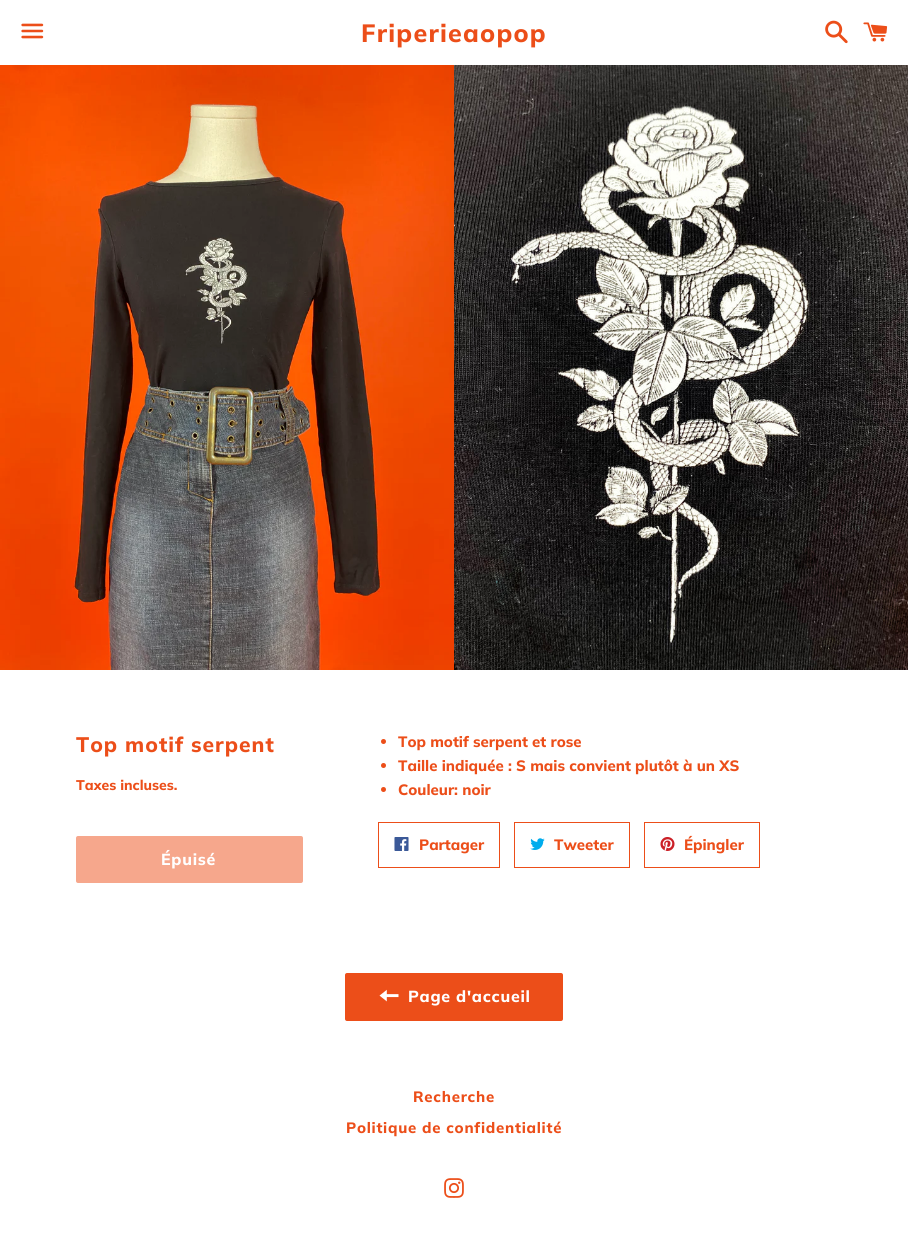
#include <cairo.h>
#include <math.h>
#include <stddef.h>

typedef struct { const char *family; double size; int italic, bold; unsigned color; } style_t;
static cairo_t *ctx;

static void ink(unsigned color) {
    cairo_set_source_rgb(ctx, (color >> 16) / 255.0, (color >> 8 & 255) / 255.0, (color & 255) / 255.0);
}

static void write(double x, double y, const char *s, const style_t *st) {
    cairo_select_font_face(ctx, st->family, st->italic ? CAIRO_FONT_SLANT_ITALIC : CAIRO_FONT_SLANT_NORMAL,
        st->bold ? CAIRO_FONT_WEIGHT_BOLD : CAIRO_FONT_WEIGHT_NORMAL);
    cairo_set_font_size(ctx, st->size);
    ink(st->color);
    cairo_move_to(ctx, x, y);
    cairo_show_text(ctx, s);
}

static void write_spaced(double x, double y, const char *s, double letter, double word) {
    cairo_move_to(ctx, x, y);
    while (*s) {
        char ch[5] = {0};
        int n = 0;
        do ch[n++] = *s++; while ((*s & 0xC0) == 0x80);
        cairo_show_text(ctx, ch);
        cairo_rel_move_to(ctx, letter + word * (*ch == ' '), 0);
    }
}

static void round_path(double x, double y, double w, double h, double r) {
    cairo_new_sub_path(ctx);
    cairo_arc(ctx, x + w - r, y + h - r, r, 0, M_PI / 2);
    cairo_arc(ctx, x + r, y + h - r, r, M_PI / 2, M_PI);
    cairo_arc(ctx, x + r, y + r, r, M_PI, 1.5 * M_PI);
    cairo_arc(ctx, x + w - r, y + r, r, 1.5 * M_PI, 2 * M_PI);
    cairo_close_path(ctx);
}

static void paste(const char *path, double x, double y, double w, double h) {
    cairo_surface_t *image = cairo_image_surface_create_from_png(path);
    cairo_save(ctx);
    cairo_set_source_surface(ctx, image, x, y);
    cairo_rectangle(ctx, x, y, w, h);
    cairo_fill(ctx);
    cairo_restore(ctx);
    cairo_surface_destroy(image);
}

static const style_t s1 = {"Muli ExtraBold", 14, 0, 0, 0xec4e19};
static const style_t s2 = {"Muli ExtraBold", 15, 0, 0, 0xec4e19};

int main(void) {
    cairo_surface_t *surface = cairo_image_surface_create(CAIRO_FORMAT_RGB24, 908, 1234);
    ctx = cairo_create(surface);
    cairo_font_options_t *options = cairo_font_options_create();
    cairo_font_options_set_hint_metrics(options, CAIRO_HINT_METRICS_OFF);
    cairo_font_options_set_hint_style(options, CAIRO_HINT_STYLE_NONE);
    cairo_set_font_options(ctx, options);
    cairo_set_miter_limit(ctx, 4);
    ink(0xffffff);
    cairo_paint(ctx);
    paste("pic1.png", 21, 23, 23, 16);
    cairo_select_font_face(ctx, "Muli ExtraBold", CAIRO_FONT_SLANT_NORMAL, CAIRO_FONT_WEIGHT_NORMAL);
    cairo_set_font_size(ctx, 25);
    ink(0xec4e19);
    write_spaced(361, 42, "Friperieaopop", 1.25, 0);
    paste("pic2.png", 825, 20, 23, 24);
    paste("pic3.png", 863, 22, 25, 20);
    paste("pic4.png", 0, 65, 454, 605);
    paste("pic5.png", 454, 65, 454, 605);
    cairo_set_font_size(ctx, 21);
    write_spaced(76, 752, "Top motif serpent", 1, 0);
    write(76, 790, "Taxes incluses.", &s1);
    ink(0xf6a78c);
    round_path(77, 837, 225, 45, 1);
    cairo_fill_preserve(ctx);
    cairo_stroke(ctx);
    cairo_set_font_size(ctx, 16);
    ink(0xffffff);
    write_spaced(161, 865, "Épuisé", 0.75, 0);
    ink(0xec4e19);
    cairo_new_path(ctx);
    cairo_arc(ctx, 383.5, 741.5, 2.5, 0, 2 * M_PI);
    cairo_fill(ctx);
    write(398, 747, "Top motif serpent et rose", &s2);
    cairo_new_path(ctx);
    cairo_arc(ctx, 383.5, 765.5, 2.5, 0, 2 * M_PI);
    cairo_fill(ctx);
    write(398, 771, "Taille indiquée : S mais convient plutôt à un XS", &s2);
    cairo_new_path(ctx);
    cairo_arc(ctx, 383.5, 789.5, 2.5, 0, 2 * M_PI);
    cairo_fill(ctx);
    write(398, 795, "Couleur: noir", &s2);
    cairo_rectangle(ctx, 378.5, 822.5, 121, 45);
    cairo_set_line_width(ctx, 1);
    cairo_stroke(ctx);
    paste("pic6.png", 394, 837, 15, 14);
    write(419, 850, "Partager", &s2);
    cairo_rectangle(ctx, 514.5, 822.5, 115, 45);
    cairo_stroke(ctx);
    paste("pic7.png", 530, 838, 15, 12);
    write(554, 850, "Tweeter", &s2);
    cairo_rectangle(ctx, 644.5, 822.5, 115, 45);
    cairo_stroke(ctx);
    paste("pic8.png", 660, 837, 15, 14);
    write(684, 850, "Épingler", &s2);
    round_path(345, 973, 218, 48, 2);
    cairo_fill(ctx);
    paste("pic9.png", 379, 989, 20, 13);
    cairo_set_font_size(ctx, 16);
    ink(0xffffff);
    write_spaced(408, 1002, "Page d'accueil", 0.75, 0);
    cairo_set_font_size(ctx, 15);
    ink(0xec4e19);
    write_spaced(413, 1102, "Recherche", 0.75, 0);
    write_spaced(346, 1133, "Politique de confidentialité", 0.75, 0);
    paste("pic10.png", 444, 1178, 20, 20);
    cairo_surface_write_to_png(surface, "screenshot.png");
    cairo_font_options_destroy(options);
    cairo_destroy(ctx);
    cairo_surface_destroy(surface);
    return 0;
}
